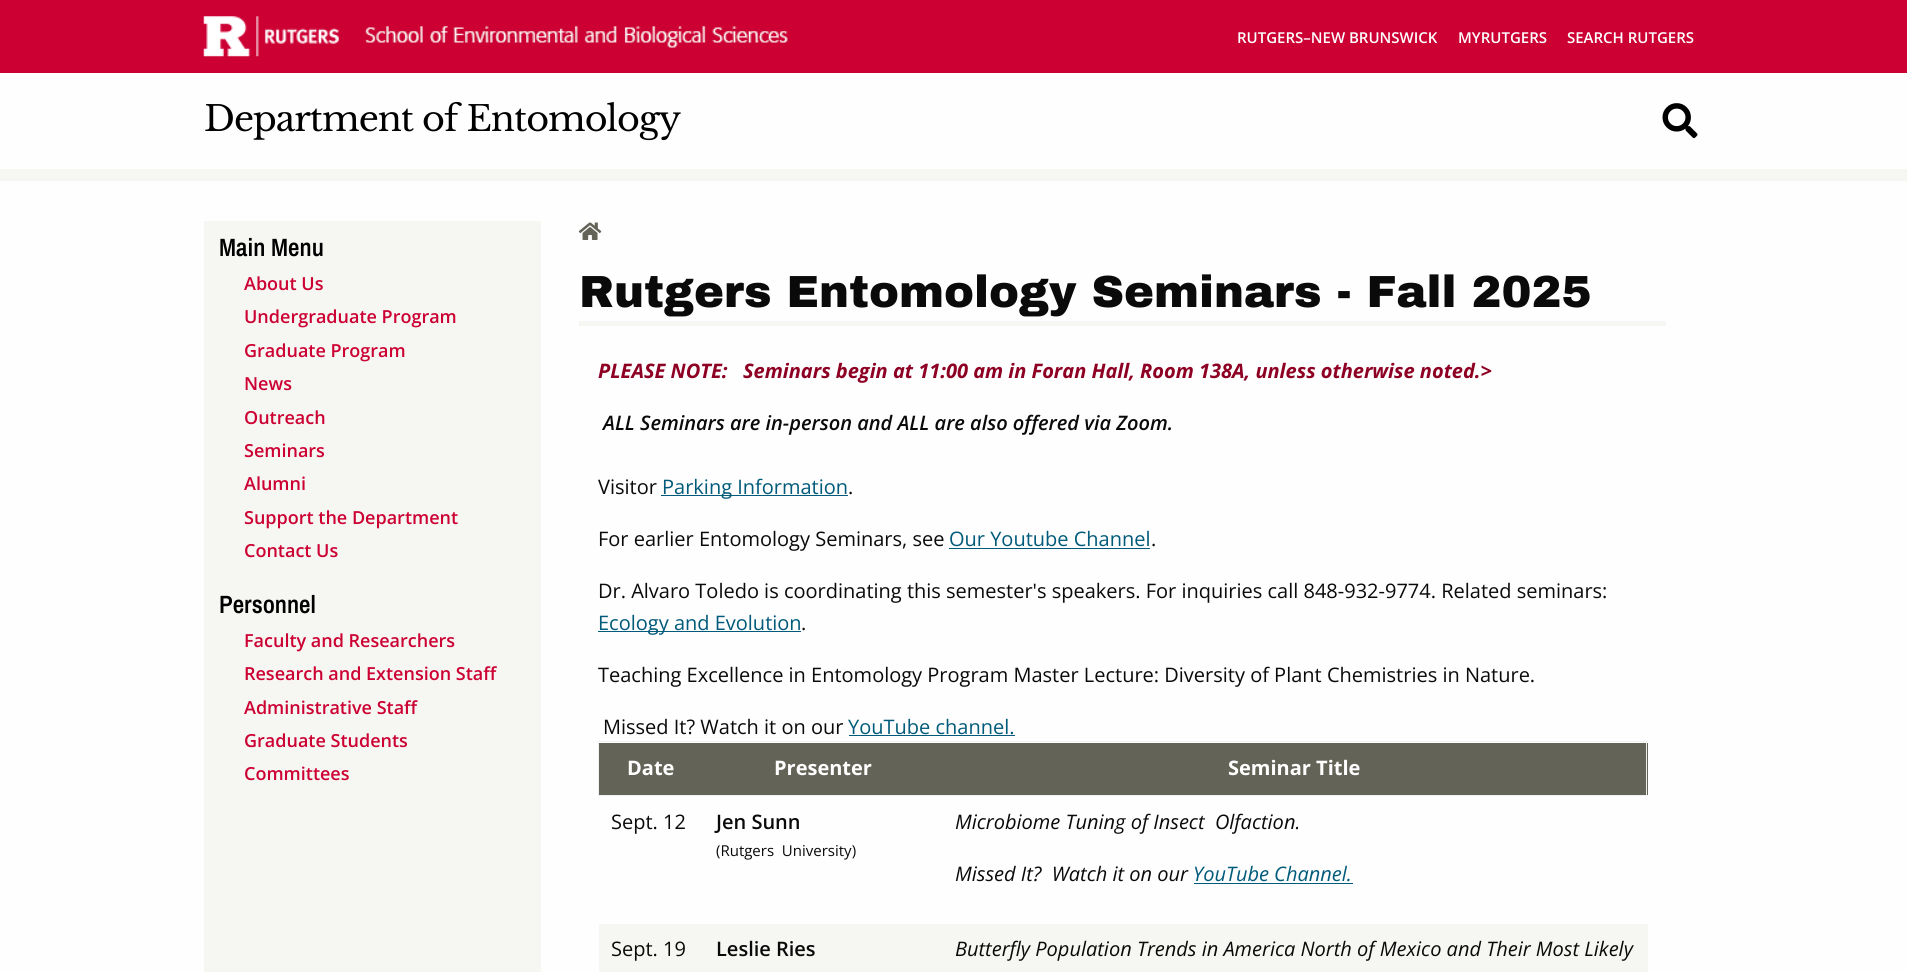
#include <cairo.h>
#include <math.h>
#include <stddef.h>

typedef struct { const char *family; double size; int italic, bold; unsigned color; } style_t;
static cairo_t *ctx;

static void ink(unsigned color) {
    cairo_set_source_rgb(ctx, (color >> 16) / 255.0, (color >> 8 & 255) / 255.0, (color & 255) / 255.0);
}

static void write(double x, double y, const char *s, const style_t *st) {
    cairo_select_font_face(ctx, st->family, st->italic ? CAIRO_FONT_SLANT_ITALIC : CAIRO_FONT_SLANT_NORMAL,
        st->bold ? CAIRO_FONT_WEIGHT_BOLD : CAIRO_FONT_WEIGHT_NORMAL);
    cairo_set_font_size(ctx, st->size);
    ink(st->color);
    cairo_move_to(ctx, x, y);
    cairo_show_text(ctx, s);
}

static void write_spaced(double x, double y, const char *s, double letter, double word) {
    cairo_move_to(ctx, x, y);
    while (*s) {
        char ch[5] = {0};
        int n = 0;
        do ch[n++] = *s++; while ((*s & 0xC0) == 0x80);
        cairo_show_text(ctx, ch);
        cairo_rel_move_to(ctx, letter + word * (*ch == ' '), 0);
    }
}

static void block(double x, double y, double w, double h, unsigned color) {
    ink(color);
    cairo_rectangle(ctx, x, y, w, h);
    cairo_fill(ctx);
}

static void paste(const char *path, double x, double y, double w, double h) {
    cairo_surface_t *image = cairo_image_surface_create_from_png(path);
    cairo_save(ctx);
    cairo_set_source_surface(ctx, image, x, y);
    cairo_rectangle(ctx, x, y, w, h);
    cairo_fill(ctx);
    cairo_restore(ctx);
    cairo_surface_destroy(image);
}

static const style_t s1 = {"Open Sans SemiBold", 15, 0, 0, 0xffffff};
static const style_t s2 = {"Archivo Narrow SemiBold", 25, 0, 0, 0x000000};
static const style_t s3 = {"Open Sans SemiBold", 18, 0, 0, 0xcc0033};
static const style_t s4 = {"Archivo Black", 45, 0, 0, 0x0a0a0a};
static const style_t s5 = {"Open Sans", 20, 1, 1, 0x8e0023};
static const style_t s6 = {"Open Sans SemiBold", 20, 1, 0, 0x0a0a0a};
static const style_t s7 = {"Open Sans", 20, 0, 0, 0x0a0a0a};
static const style_t s8 = {"Open Sans", 20, 0, 0, 0x005a7a};
static const style_t s9 = {"Open Sans", 20, 0, 1, 0xffffff};
static const style_t s10 = {"Open Sans SemiBold", 20, 0, 0, 0x0a0a0a};
static const style_t s11 = {"Open Sans", 15, 0, 0, 0x0a0a0a};
static const style_t s12 = {"Open Sans", 20, 1, 0, 0x0a0a0a};
static const style_t s13 = {"Open Sans", 20, 1, 0, 0x005a7a};

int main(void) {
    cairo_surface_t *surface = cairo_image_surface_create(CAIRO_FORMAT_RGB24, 1907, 972);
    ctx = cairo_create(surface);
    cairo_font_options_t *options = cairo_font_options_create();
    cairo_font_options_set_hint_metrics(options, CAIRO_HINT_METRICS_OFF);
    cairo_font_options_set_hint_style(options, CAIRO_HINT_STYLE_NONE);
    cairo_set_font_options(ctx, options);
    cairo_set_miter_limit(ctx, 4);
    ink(0xfefefe);
    cairo_paint(ctx);
    block(0, 0, 1907, 73, 0xcc0033);
    paste("pic1.png", 203, 16, 136, 41);
    paste("pic2.png", 365, 26, 423, 22);
    write(1237, 43, "RUTGERS–NEW BRUNSWICK", &s1);
    write(1458, 43, "MYRUTGERS", &s1);
    write(1567, 43, "SEARCH RUTGERS", &s1);
    block(0, 169, 1907, 12, 0xf6f7f2);
    cairo_select_font_face(ctx, "Libre Baskerville", CAIRO_FONT_SLANT_NORMAL, CAIRO_FONT_WEIGHT_NORMAL);
    cairo_set_font_size(ctx, 35);
    ink(0x000000);
    write_spaced(204, 131, "Department of Entomology", -1, 0);
    paste("pic3.png", 1662, 103, 36, 36);
    block(204, 221, 337, 751, 0xf6f7f2);
    write(219, 256, "Main Menu", &s2);
    write(244, 290, "About Us", &s3);
    write(244, 323, "Undergraduate Program", &s3);
    write(244, 357, "Graduate Program", &s3);
    write(244, 390, "News", &s3);
    write(244, 424, "Outreach", &s3);
    write(244, 457, "Seminars", &s3);
    write(244, 490, "Alumni", &s3);
    write(244, 524, "Support the Department", &s3);
    write(244, 557, "Contact Us", &s3);
    write(219, 613, "Personnel", &s2);
    write(244, 647, "Faculty and Researchers", &s3);
    write(244, 680, "Research and Extension Staff", &s3);
    write(244, 714, "Administrative Staff", &s3);
    write(244, 747, "Graduate Students", &s3);
    write(244, 780, "Committees", &s3);
    paste("pic4.png", 578, 222, 24, 18);
    block(579, 321, 1087, 5, 0xf6f7f2);
    write(579, 307, "Rutgers Entomology Seminars - Fall 2025", &s4);
    write(598, 378, "PLEASE NOTE:", &s5);
    write(743, 378, "Seminars begin at 11:00 am in Foran Hall, Room 138A, unless otherwise noted.>", &s5);
    write(603, 430, "ALL Seminars are in-person and ALL are also offered via Zoom.", &s6);
    write(598, 494, "Visitor", &s7);
    block(661, 495, 187, 1, 0x005a7a);
    write(662, 494, "Parking Information", &s8);
    write(848, 494, ".", &s7);
    write(598, 546, "For earlier Entomology Seminars, see", &s7);
    write(949, 546, "Our Youtube Channel", &s8);
    block(949, 548, 201, 1, 0x005a7a);
    write(1151, 546, ".", &s7);
    write(598, 598, "Dr. Alvaro Toledo is coordinating this semester's speakers. For inquiries call 848-932-9774. Related seminars:", &s7);
    block(598, 631, 203, 1, 0x005a7a);
    write(598, 630, "Ecology and Evolution", &s8);
    write(801, 630, ".", &s7);
    write(598, 682, "Teaching Excellence in Entomology Program Master Lecture: Diversity of Plant Chemistries in Nature.", &s7);
    write(603, 734, "Missed It? Watch it on our", &s7);
    write(848, 734, "YouTube channel.", &s8);
    block(849, 735, 166, 1, 0x005a7a);
    block(599, 743, 1049, 52, 0x636357);
    block(598, 741, 1050, 1, 0xf1f1f1);
    block(1646, 741, 1, 55, 0xf1f1f1);
    block(598, 795, 1050, 1, 0xf1f1f1);
    block(598, 741, 1, 55, 0xf1f1f1);
    write(627, 775, "Date", &s9);
    write(774, 775, "Presenter", &s9);
    write(1228, 775, "Seminar Title", &s9);
    write(611, 829, "Sept. 12", &s7);
    write(716, 829, "Jen Sunn", &s10);
    write(716, 856, "(Rutgers  University)", &s11);
    write(955, 829, "Microbiome Tuning of Insect  Olfaction.", &s12);
    write(955, 881, "Missed It?  Watch it on our", &s12);
    write(1193, 881, "YouTube Channel.", &s13);
    block(1194, 883, 159, 1, 0x005a7a);
    block(599, 924, 1049, 48, 0xf6f7f2);
    write(611, 956, "Sept. 19", &s7);
    write(716, 956, "Leslie Ries", &s10);
    write(955, 956, "Butterfly Population Trends in America North of Mexico and Their Most Likely", &s12);
    cairo_surface_write_to_png(surface, "screenshot.png");
    cairo_font_options_destroy(options);
    cairo_destroy(ctx);
    cairo_surface_destroy(surface);
    return 0;
}
